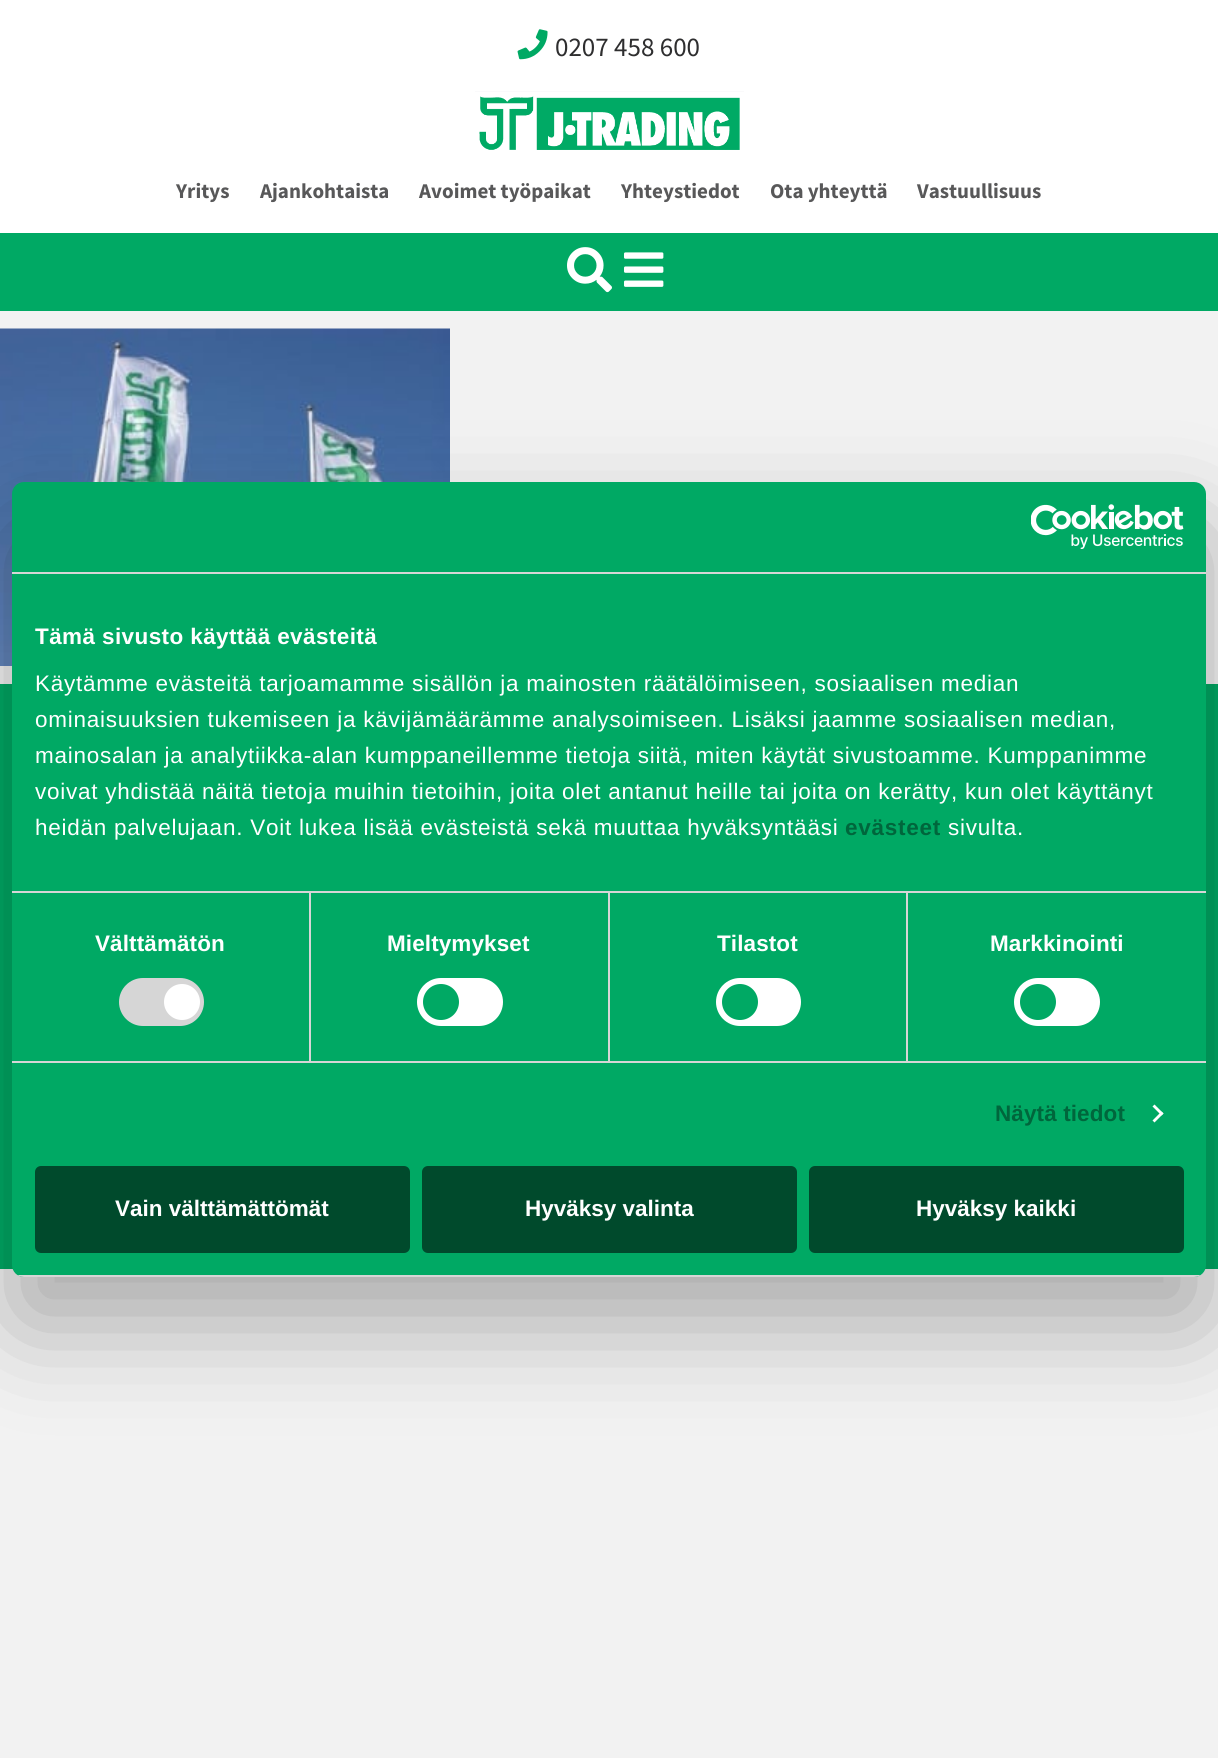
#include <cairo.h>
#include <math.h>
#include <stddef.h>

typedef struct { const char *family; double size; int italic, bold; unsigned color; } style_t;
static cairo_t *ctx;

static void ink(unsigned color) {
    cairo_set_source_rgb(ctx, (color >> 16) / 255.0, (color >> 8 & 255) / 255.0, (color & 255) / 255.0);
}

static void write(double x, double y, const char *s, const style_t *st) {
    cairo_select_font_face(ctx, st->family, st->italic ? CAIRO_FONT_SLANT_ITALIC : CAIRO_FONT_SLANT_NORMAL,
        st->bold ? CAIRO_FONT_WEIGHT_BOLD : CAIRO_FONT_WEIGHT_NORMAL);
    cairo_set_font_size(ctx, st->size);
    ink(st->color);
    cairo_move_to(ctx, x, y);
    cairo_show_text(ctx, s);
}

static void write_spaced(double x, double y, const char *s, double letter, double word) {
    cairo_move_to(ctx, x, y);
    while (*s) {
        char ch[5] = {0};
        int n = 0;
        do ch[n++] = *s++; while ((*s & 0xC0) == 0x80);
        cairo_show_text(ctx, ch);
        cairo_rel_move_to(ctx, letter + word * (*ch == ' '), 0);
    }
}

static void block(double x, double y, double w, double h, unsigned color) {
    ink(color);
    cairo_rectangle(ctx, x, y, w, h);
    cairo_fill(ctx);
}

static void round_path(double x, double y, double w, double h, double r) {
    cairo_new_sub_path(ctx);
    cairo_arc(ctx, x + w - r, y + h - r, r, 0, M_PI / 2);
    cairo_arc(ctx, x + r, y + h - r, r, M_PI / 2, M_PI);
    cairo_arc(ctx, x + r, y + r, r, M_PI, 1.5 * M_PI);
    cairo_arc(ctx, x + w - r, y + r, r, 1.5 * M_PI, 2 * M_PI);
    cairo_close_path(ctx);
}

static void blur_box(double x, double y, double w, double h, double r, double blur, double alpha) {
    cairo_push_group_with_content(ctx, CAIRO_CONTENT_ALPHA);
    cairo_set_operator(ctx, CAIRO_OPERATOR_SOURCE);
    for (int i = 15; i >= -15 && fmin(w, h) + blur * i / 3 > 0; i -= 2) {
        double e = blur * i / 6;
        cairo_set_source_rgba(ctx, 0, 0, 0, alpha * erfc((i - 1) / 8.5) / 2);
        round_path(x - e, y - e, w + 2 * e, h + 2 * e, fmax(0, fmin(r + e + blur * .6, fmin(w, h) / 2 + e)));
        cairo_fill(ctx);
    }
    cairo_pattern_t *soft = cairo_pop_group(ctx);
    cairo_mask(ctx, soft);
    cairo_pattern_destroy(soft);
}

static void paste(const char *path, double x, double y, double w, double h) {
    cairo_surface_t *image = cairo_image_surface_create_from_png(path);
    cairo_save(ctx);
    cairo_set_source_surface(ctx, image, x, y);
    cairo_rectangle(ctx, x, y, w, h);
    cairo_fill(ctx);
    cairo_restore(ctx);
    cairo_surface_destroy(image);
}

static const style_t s1 = {"Source Sans Pro", 27, 0, 0, 0x2e2e2f};
static const style_t s2 = {"Source Sans Pro", 21, 0, 1, 0x585859};
static const style_t s3 = {"Liberation Sans", 22.5, 0, 1, 0xffffff};

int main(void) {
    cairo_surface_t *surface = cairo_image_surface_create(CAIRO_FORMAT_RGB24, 1218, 1758);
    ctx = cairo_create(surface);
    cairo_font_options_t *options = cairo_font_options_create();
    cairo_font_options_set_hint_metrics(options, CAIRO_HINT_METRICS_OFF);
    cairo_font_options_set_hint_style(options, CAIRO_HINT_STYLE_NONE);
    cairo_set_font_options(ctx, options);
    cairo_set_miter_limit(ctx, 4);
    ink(0xf2f2f2);
    cairo_paint(ctx);
    block(0, 0, 1218, 233, 0xffffff);
    paste("pic1.png", 517, 29, 31, 31);
    write(555, 56, "0207 458 600", &s1);
    paste("pic2.png", 475, 91, 269, 59);
    write(176, 198, "Yritys", &s2);
    write(260, 198, "Ajankohtaista", &s2);
    write(419, 198, "Avoimet työpaikat", &s2);
    write(621, 198, "Yhteystiedot", &s2);
    write(770, 198, "Ota yhteyttä", &s2);
    write(917, 198, "Vastuullisuus", &s2);
    block(0, 233, 1218, 78, 0x00a964);
    paste("pic3.png", 567, 247, 45, 46);
    paste("pic4.png", 624, 252, 40, 35);
    paste("pic5.png", 0, 328, 450, 338);
    block(0, 684, 1218, 585, 0x00a964);
    ink(0x000000);
    blur_box(12, 530, 1194, 795, 12, 51, 0.3);
    ink(0x00a964);
    round_path(12, 482, 1194, 795, 12);
    cairo_fill(ctx);
    block(12, 572, 1194, 2, 0xd6d6d6);
    paste("pic6.png", 1031, 504, 153, 45);
    block(12, 891, 1194, 2, 0xd6d6d6);
    cairo_select_font_face(ctx, "Liberation Sans", CAIRO_FONT_SLANT_NORMAL, CAIRO_FONT_WEIGHT_BOLD);
    cairo_set_font_size(ctx, 22.5);
    ink(0xffffff);
    write_spaced(35, 644, "Tämä sivusto käyttää evästeitä", 0.4, 0);
    cairo_select_font_face(ctx, "Liberation Sans", CAIRO_FONT_SLANT_NORMAL, CAIRO_FONT_WEIGHT_NORMAL);
    write_spaced(35, 691, "Käytämme evästeitä tarjoamamme sisällön ja mainosten räätälöimiseen, sosiaalisen median", 0.75, 0);
    write_spaced(35, 727, "ominaisuuksien tukemiseen ja kävijämäärämme analysoimiseen. Lisäksi jaamme sosiaalisen median,", 0.75, 0);
    write_spaced(35, 763, "mainosalan ja analytiikka-alan kumppaneillemme tietoja siitä, miten käytät sivustoamme. Kumppanimme", 0.75, 0);
    write_spaced(35, 799, "voivat yhdistää näitä tietoja muihin tietoihin, joita olet antanut heille tai joita on kerätty, kun olet käyttänyt", 0.75, 0);
    write_spaced(35, 835, "heidän palvelujaan. Voit lukea lisää evästeistä sekä muuttaa hyväksyntääsi", 0.75, 0);
    cairo_select_font_face(ctx, "Liberation Sans", CAIRO_FONT_SLANT_NORMAL, CAIRO_FONT_WEIGHT_BOLD);
    ink(0x00663c);
    write_spaced(845, 835, "evästeet", 0.75, 0);
    cairo_select_font_face(ctx, "Liberation Sans", CAIRO_FONT_SLANT_NORMAL, CAIRO_FONT_WEIGHT_NORMAL);
    ink(0xffffff);
    write_spaced(948, 835, "sivulta.", 0.75, 0);
    block(12, 1061, 1194, 2, 0xd6d6d6);
    block(309, 893, 2, 168, 0xd6d6d6);
    cairo_select_font_face(ctx, "Liberation Sans", CAIRO_FONT_SLANT_NORMAL, CAIRO_FONT_WEIGHT_BOLD);
    ink(0xffffff);
    write_spaced(95, 951, "Välttämätön", 0.1, 0);
    ink(0xd6d6d6);
    round_path(119, 978, 85, 48, 24);
    cairo_fill(ctx);
    ink(0xffffff);
    cairo_arc(ctx, 182, 1002, 18, 0, 2 * M_PI);
    cairo_fill(ctx);
    block(608, 893, 2, 168, 0xd6d6d6);
    ink(0xffffff);
    write_spaced(387, 951, "Mieltymykset", 0.1, 0);
    round_path(417, 978, 86, 48, 24);
    cairo_fill(ctx);
    ink(0x00a964);
    cairo_arc(ctx, 441, 1002, 18, 0, 2 * M_PI);
    cairo_fill(ctx);
    block(906, 893, 2, 168, 0xd6d6d6);
    ink(0xffffff);
    write_spaced(717, 951, "Tilastot", 0.1, 0);
    round_path(716, 978, 85, 48, 24);
    cairo_fill(ctx);
    ink(0x00a964);
    cairo_arc(ctx, 740, 1002, 18, 0, 2 * M_PI);
    cairo_fill(ctx);
    ink(0xffffff);
    write_spaced(990, 951, "Markkinointi", 0.1, 0);
    round_path(1014, 978, 86, 48, 24);
    cairo_fill(ctx);
    ink(0x00a964);
    cairo_arc(ctx, 1038, 1002, 18, 0, 2 * M_PI);
    cairo_fill(ctx);
    ink(0x00663c);
    write_spaced(995, 1121, "Näytä tiedot", 0.1, 0);
    ink(0xffffff);
    cairo_new_path(ctx);
    cairo_move_to(ctx, 1154.5, 1104.5);
    cairo_line_to(ctx, 1163.5, 1113.5);
    cairo_line_to(ctx, 1161.5, 1115.5);
    cairo_line_to(ctx, 1152.5, 1106.5);
    cairo_close_path(ctx);
    cairo_fill(ctx);
    cairo_new_path(ctx);
    cairo_move_to(ctx, 1161.5, 1111.5);
    cairo_line_to(ctx, 1163.5, 1113.5);
    cairo_line_to(ctx, 1154.5, 1122.5);
    cairo_line_to(ctx, 1152.5, 1120.5);
    cairo_close_path(ctx);
    cairo_fill(ctx);
    cairo_save(ctx);
    round_path(12, 482, 1194, 795, 12);
    cairo_clip(ctx);
    block(12, 1275, 1194, 2, 0xd6d6d6);
    cairo_restore(ctx);
    ink(0x004a2c);
    round_path(36.5, 1167.5, 372, 84, 4.5);
    cairo_fill_preserve(ctx);
    cairo_set_line_width(ctx, 3);
    cairo_stroke(ctx);
    write(115, 1216, "Vain välttämättömät", &s3);
    ink(0x004a2c);
    round_path(423.5, 1167.5, 372, 84, 4.5);
    cairo_fill_preserve(ctx);
    cairo_stroke(ctx);
    write(525, 1216, "Hyväksy valinta", &s3);
    ink(0x004a2c);
    round_path(810.5, 1167.5, 372, 84, 4.5);
    cairo_fill_preserve(ctx);
    cairo_stroke(ctx);
    write(916, 1216, "Hyväksy kaikki", &s3);
    cairo_surface_write_to_png(surface, "screenshot.png");
    cairo_font_options_destroy(options);
    cairo_destroy(ctx);
    cairo_surface_destroy(surface);
    return 0;
}
